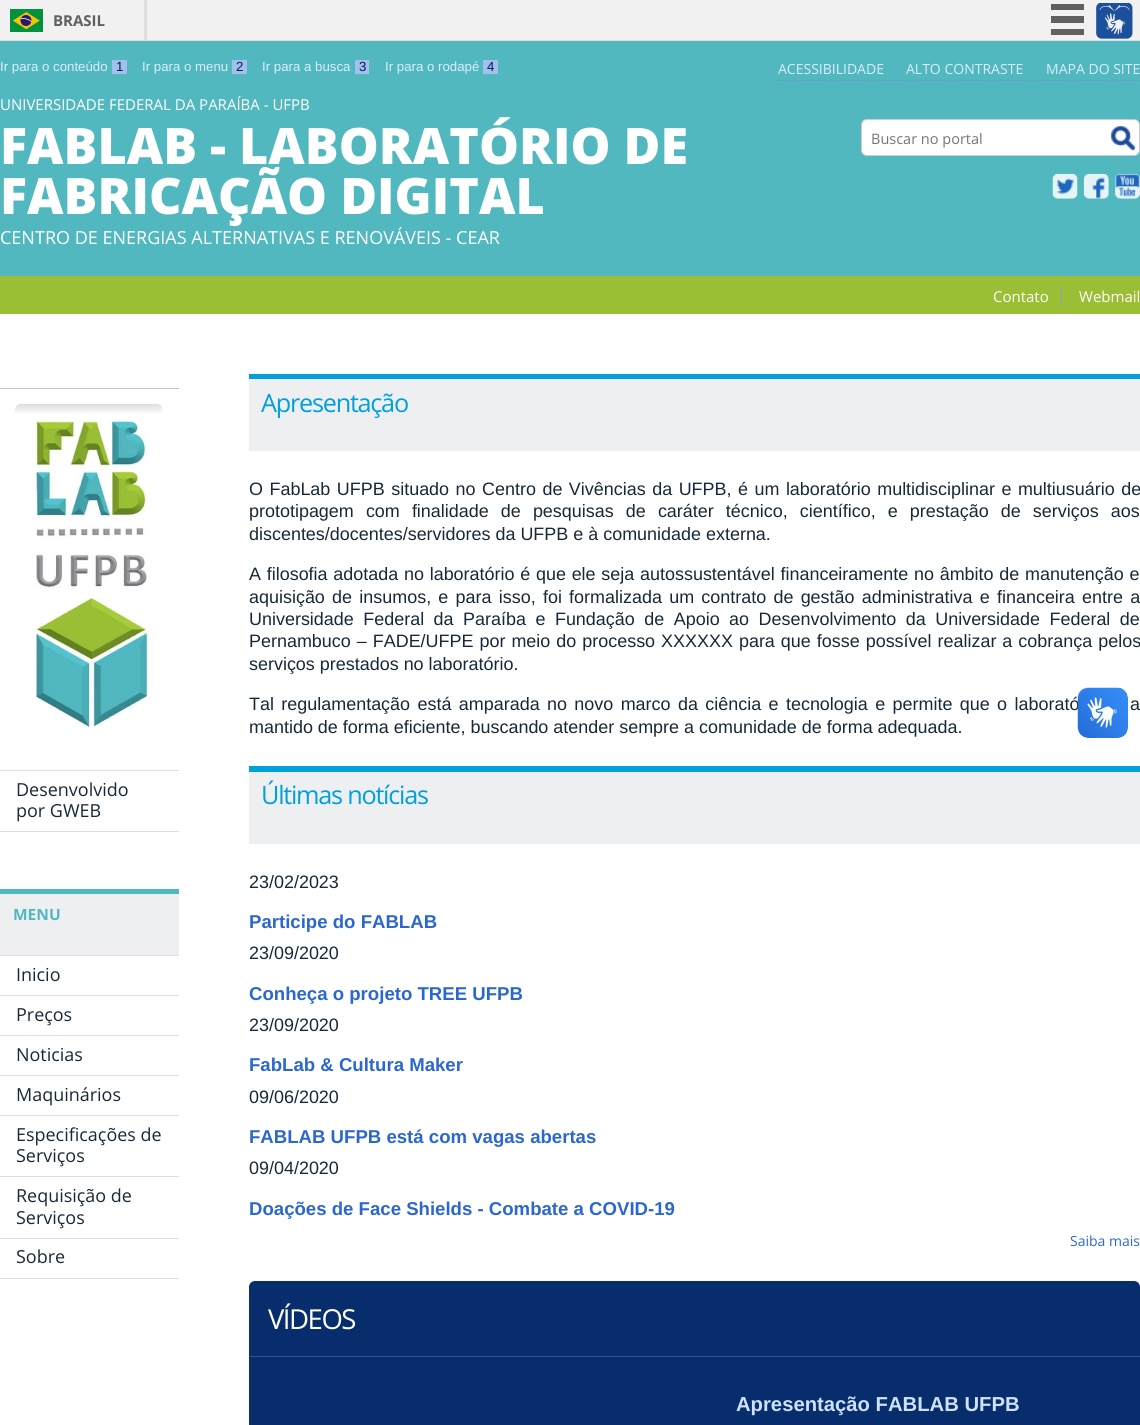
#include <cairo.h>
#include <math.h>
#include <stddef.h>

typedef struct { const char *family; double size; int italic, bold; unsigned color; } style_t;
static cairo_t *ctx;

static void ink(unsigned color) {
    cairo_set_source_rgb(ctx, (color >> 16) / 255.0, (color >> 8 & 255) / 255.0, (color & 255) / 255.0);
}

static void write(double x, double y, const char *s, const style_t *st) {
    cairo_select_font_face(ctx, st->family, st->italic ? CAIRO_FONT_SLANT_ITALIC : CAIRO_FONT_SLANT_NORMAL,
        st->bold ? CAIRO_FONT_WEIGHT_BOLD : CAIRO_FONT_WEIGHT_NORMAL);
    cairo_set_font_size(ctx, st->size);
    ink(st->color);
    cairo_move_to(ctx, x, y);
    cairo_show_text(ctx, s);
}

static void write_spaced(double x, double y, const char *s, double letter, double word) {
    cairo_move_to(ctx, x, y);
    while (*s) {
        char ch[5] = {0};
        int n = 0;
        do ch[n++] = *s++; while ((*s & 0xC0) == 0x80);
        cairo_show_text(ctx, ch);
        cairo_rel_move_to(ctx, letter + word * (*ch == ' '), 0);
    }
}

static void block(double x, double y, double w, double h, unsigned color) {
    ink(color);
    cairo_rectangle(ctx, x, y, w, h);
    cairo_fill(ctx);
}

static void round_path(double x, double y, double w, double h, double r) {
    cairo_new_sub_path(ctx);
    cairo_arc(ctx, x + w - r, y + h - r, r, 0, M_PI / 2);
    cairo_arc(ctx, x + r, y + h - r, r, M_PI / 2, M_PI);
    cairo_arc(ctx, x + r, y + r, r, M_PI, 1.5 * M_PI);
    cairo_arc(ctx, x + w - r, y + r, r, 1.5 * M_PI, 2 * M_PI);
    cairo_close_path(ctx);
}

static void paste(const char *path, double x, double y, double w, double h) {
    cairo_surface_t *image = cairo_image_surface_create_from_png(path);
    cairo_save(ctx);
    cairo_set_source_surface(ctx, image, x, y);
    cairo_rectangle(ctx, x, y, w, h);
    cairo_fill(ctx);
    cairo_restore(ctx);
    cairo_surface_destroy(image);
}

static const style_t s1 = {"Open Sans", 15, 0, 1, 0x606060};
static const style_t s2 = {"Liberation Sans", 13.25, 0, 0, 0xdcecff};
static const style_t s3 = {"Liberation Sans", 13.25, 0, 0, 0x0a1857};
static const style_t s4 = {"Open Sans", 14, 0, 0, 0xdcecff};
static const style_t s5 = {"Open Sans", 15, 0, 0, 0xffffff};
static const style_t s6 = {"Open Sans ExtraBold", 50.25, 0, 0, 0xffffff};
static const style_t s7 = {"Open Sans", 18, 0, 0, 0xffffff};
static const style_t s8 = {"Open Sans", 14.5, 0, 0, 0x757575};
static const style_t s9 = {"Open Sans", 17.95, 0, 0, 0x172938};
static const style_t s10 = {"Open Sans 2", 15.5, 0, 1, 0x51b8bf};
static const style_t s11 = {"Liberation Sans", 17.95, 0, 0, 0x172938};
static const style_t s12 = {"Liberation Sans", 18.6, 0, 1, 0x2c67cd};
static const style_t s13 = {"Open Sans", 14, 0, 0, 0x2c67cd};
static const style_t s14 = {"Liberation Sans", 20.25, 0, 1, 0xcde1fa};

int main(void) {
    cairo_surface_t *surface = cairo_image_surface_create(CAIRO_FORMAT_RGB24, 1140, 1425);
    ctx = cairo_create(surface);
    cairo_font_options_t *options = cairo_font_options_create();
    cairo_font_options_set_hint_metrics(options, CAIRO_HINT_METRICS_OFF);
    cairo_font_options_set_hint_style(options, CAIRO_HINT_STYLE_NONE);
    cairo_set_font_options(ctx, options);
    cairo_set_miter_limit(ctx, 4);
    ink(0xffffff);
    cairo_paint(ctx);
    block(0, 0, 1140, 40, 0xf1f1f1);
    block(0, 40, 1140, 1, 0xdfdfdf);
    block(144, 0, 3, 40, 0xdfdfdf);
    paste("pic1.png", 10, 9, 33, 23);
    write(53, 26, "BRASIL", &s1);
    block(1051, 4, 33, 6, 0x606060);
    block(1051, 16, 33, 7, 0x606060);
    block(1051, 29, 33, 6, 0x606060);
    paste("pic2.png", 1096, 3, 37, 36);
    block(0, 41, 1140, 235, 0x51b8bf);
    write(0, 71, "Ir para o conteúdo", &s2);
    block(112, 60, 15, 14, 0xa1c0ec);
    write(116, 71, "1", &s3);
    write(142, 71, "Ir para o menu", &s2);
    block(232, 60, 15, 14, 0xa1c0ec);
    write(236, 71, "2", &s3);
    write(262, 71, "Ir para a busca", &s2);
    block(355, 60, 14, 14, 0xa1c0ec);
    write(359, 71, "3", &s3);
    write(385, 71, "Ir para o rodapé", &s2);
    block(483, 60, 15, 14, 0xa1c0ec);
    write(487, 71, "4", &s3);
    cairo_new_path(ctx);
    cairo_move_to(ctx, 777.5, 80.5);
    cairo_line_to(ctx, 1140, 80.5);
    ink(0x6893cb);
    cairo_set_line_width(ctx, 1.2);
    cairo_set_dash(ctx, (double[]){1.25, 1.25}, 2, 0);
    cairo_stroke(ctx);
    write(778, 74, "ACESSIBILIDADE", &s4);
    write(906, 74, "ALTO CONTRASTE", &s4);
    write(1046, 74, "MAPA DO SITE", &s4);
    write(0, 110, "UNIVERSIDADE FEDERAL DA PARAÍBA - UFPB", &s5);
    write(0, 164, "FABLAB - LABORATÓRIO DE", &s6);
    write(0, 214, "FABRICAÇÃO DIGITAL", &s6);
    write(0, 244, "CENTRO DE ENERGIAS ALTERNATIVAS E RENOVÁVEIS - CEAR", &s7);
    round_path(861.5, 119.5, 278, 36, 5.5);
    cairo_fill_preserve(ctx);
    ink(0xcccccc);
    cairo_set_line_width(ctx, 1);
    cairo_set_dash(ctx, NULL, 0, 0);
    cairo_stroke(ctx);
    write(871, 144, "Buscar no portal", &s8);
    paste("pic3.png", 1111, 126, 25, 25);
    paste("pic4.png", 1052, 173, 26, 26);
    paste("pic5.png", 1083, 173, 26, 26);
    paste("pic6.png", 1115, 173, 25, 26);
    block(0, 276, 1140, 38, 0x9abf34);
    write(993, 302, "Contato", &s5);
    block(1061, 285, 1, 20, 0x87a0cc);
    write(1079, 302, "Webmail", &s5);
    block(0, 388, 179, 1, 0xc1c1c1);
    paste("pic7.png", 15, 404, 148, 325);
    block(0, 770, 179, 1, 0xdfdfdf);
    block(0, 831, 179, 1, 0xdfdfdf);
    write(16, 796, "Desenvolvido", &s9);
    write(16, 817, "por GWEB", &s9);
    block(0, 894, 179, 61, 0xedeff1);
    block(0, 889, 179, 5, 0x51b8bf);
    write(13, 920, "MENU", &s10);
    block(0, 955, 179, 1, 0xdfdfdf);
    write(16, 981, "Inicio", &s9);
    block(0, 995, 179, 1, 0xdfdfdf);
    write(16, 1021, "Preços", &s9);
    block(0, 1035, 179, 1, 0xdfdfdf);
    write(16, 1061, "Noticias", &s9);
    block(0, 1075, 179, 1, 0xdfdfdf);
    write(16, 1101, "Maquinários", &s9);
    block(0, 1115, 179, 1, 0xdfdfdf);
    write(16, 1141, "Especificações de", &s9);
    write(16, 1162, "Serviços", &s9);
    block(0, 1176, 179, 1, 0xdfdfdf);
    write(16, 1202, "Requisição de", &s9);
    write(16, 1224, "Serviços", &s9);
    block(0, 1238, 179, 1, 0xdfdfdf);
    block(0, 1278, 179, 1, 0xdfdfdf);
    write(16, 1263, "Sobre", &s9);
    block(249, 374, 891, 5, 0x00a0db);
    block(249, 379, 891, 72, 0xeeeff1);
    cairo_set_font_size(ctx, 25.25);
    ink(0x00a0db);
    write_spaced(261, 412, "Apresentação", -1.25, 0);
    cairo_select_font_face(ctx, "Liberation Sans", CAIRO_FONT_SLANT_NORMAL, CAIRO_FONT_WEIGHT_NORMAL);
    cairo_set_font_size(ctx, 17.95);
    ink(0x172938);
    write_spaced(249, 495, "O FabLab UFPB situado no Centro de Vivências da UFPB, é um laboratório multidisciplinar e multiusuário de", 0, 1.5);
    write_spaced(249, 517, "prototipagem com finalidade de pesquisas de caráter técnico, científico, e prestação de serviços aos", 0, 7.1);
    write(249, 540, "discentes/docentes/servidores da UFPB e à comunidade externa.", &s11);
    write_spaced(249, 580, "A filosofia adotada no laboratório é que ele seja autossustentável financeiramente no âmbito de manutenção e", 0, 0.75);
    write_spaced(249, 603, "aquisição de insumos, e para isso, foi formalizada um contrato de gestão administrativa e financeira entre a", 0, 2.25);
    write_spaced(249, 625, "Universidade Federal da Paraíba e Fundação de Apoio ao Desenvolvimento da Universidade Federal de", 0, 4.5);
    write_spaced(249, 647, "Pernambuco – FADE/UFPE por meio do processo XXXXXX para que fosse possível realizar a cobrança pelos", 0, 1);
    write(249, 670, "serviços prestados no laboratório.", &s11);
    write_spaced(249, 710, "Tal regulamentação está amparada no novo marco da ciência e tecnologia e permite que o laborató", 0, 2.4);
    write_spaced(1130, 710, "a", 0, 2.4);
    write(249, 733, "mantido de forma eficiente, buscando atender sempre a comunidade de forma adequada.", &s11);
    block(249, 772, 891, 72, 0xeeeff1);
    block(249, 766, 891, 6, 0x00a0db);
    cairo_select_font_face(ctx, "Open Sans", CAIRO_FONT_SLANT_NORMAL, CAIRO_FONT_WEIGHT_NORMAL);
    cairo_set_font_size(ctx, 25.25);
    write_spaced(261, 804, "Últimas notícias", -1.25, 0);
    write(249, 888, "23/02/2023", &s11);
    write(249, 928, "Participe do FABLAB", &s12);
    write(249, 959, "23/09/2020", &s11);
    write(249, 1000, "Conheça o projeto TREE UFPB", &s12);
    write(249, 1031, "23/09/2020", &s11);
    write(249, 1071, "FabLab & Cultura Maker", &s12);
    write(249, 1103, "09/06/2020", &s11);
    write(249, 1143, "FABLAB UFPB está com vagas abertas", &s12);
    write(249, 1174, "09/04/2020", &s11);
    write(249, 1215, "Doações de Face Shields - Combate a COVID-19", &s12);
    write(1070, 1246, "Saiba mais", &s13);
    ink(0x072d6c);
    round_path(249, 1281, 891, 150, 6);
    cairo_fill(ctx);
    block(249, 1356, 891, 1, 0x2e5493);
    cairo_set_font_size(ctx, 27.5);
    ink(0xffffff);
    write_spaced(268, 1329, "VÍDEOS", -1.5, 0);
    write(736, 1411, "Apresentação FABLAB UFPB", &s14);
    paste("pic8.png", 1077, 687, 51, 51);
    paste("pic9.png", 1078, 688, 50, 50);
    cairo_surface_write_to_png(surface, "screenshot.png");
    cairo_font_options_destroy(options);
    cairo_destroy(ctx);
    cairo_surface_destroy(surface);
    return 0;
}
